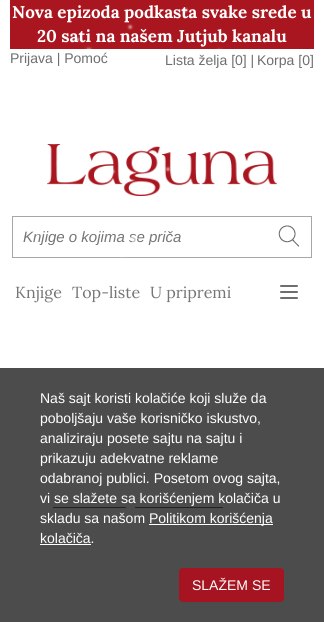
#include <cairo.h>
#include <math.h>
#include <stddef.h>

typedef struct { const char *family; double size; int italic, bold; unsigned color; } style_t;
static cairo_t *ctx;

static void ink(unsigned color) {
    cairo_set_source_rgb(ctx, (color >> 16) / 255.0, (color >> 8 & 255) / 255.0, (color & 255) / 255.0);
}

static void write(double x, double y, const char *s, const style_t *st) {
    cairo_select_font_face(ctx, st->family, st->italic ? CAIRO_FONT_SLANT_ITALIC : CAIRO_FONT_SLANT_NORMAL,
        st->bold ? CAIRO_FONT_WEIGHT_BOLD : CAIRO_FONT_WEIGHT_NORMAL);
    cairo_set_font_size(ctx, st->size);
    ink(st->color);
    cairo_move_to(ctx, x, y);
    cairo_show_text(ctx, s);
}

static void block(double x, double y, double w, double h, unsigned color) {
    ink(color);
    cairo_rectangle(ctx, x, y, w, h);
    cairo_fill(ctx);
}

static void round_path(double x, double y, double w, double h, double r) {
    cairo_new_sub_path(ctx);
    cairo_arc(ctx, x + w - r, y + h - r, r, 0, M_PI / 2);
    cairo_arc(ctx, x + r, y + h - r, r, M_PI / 2, M_PI);
    cairo_arc(ctx, x + r, y + r, r, M_PI, 1.5 * M_PI);
    cairo_arc(ctx, x + w - r, y + r, r, 1.5 * M_PI, 2 * M_PI);
    cairo_close_path(ctx);
}

static void paste(const char *path, double x, double y, double w, double h) {
    cairo_surface_t *image = cairo_image_surface_create_from_png(path);
    cairo_save(ctx);
    cairo_set_source_surface(ctx, image, x, y);
    cairo_rectangle(ctx, x, y, w, h);
    cairo_fill(ctx);
    cairo_restore(ctx);
    cairo_surface_destroy(image);
}

static const style_t s1 = {"Lora", 17, 0, 1, 0xffffff};
static const style_t s2 = {"Arimo", 14, 0, 0, 0x6d6e70};
static const style_t s3 = {"Arimo", 15, 1, 0, 0x757575};
static const style_t s4 = {"Lora", 16, 0, 0, 0x757575};
static const style_t s5 = {"Arimo", 14, 0, 0, 0xffffff};

int main(void) {
    cairo_surface_t *surface = cairo_image_surface_create(CAIRO_FORMAT_RGB24, 324, 622);
    ctx = cairo_create(surface);
    cairo_font_options_t *options = cairo_font_options_create();
    cairo_font_options_set_hint_metrics(options, CAIRO_HINT_METRICS_OFF);
    cairo_font_options_set_hint_style(options, CAIRO_HINT_STYLE_NONE);
    cairo_set_font_options(ctx, options);
    cairo_set_miter_limit(ctx, 4);
    ink(0xffffff);
    cairo_paint(ctx);
    block(10, 0, 304, 49, 0xaa161f);
    write(12, 18, "Nova epizoda podkasta svake srede u", &s1);
    write(37, 42, "20 sati na našem Jutjub kanalu", &s1);
    write(10, 63, "Prijava | Pomoć", &s2);
    write(165, 65, "Lista želja [0] |", &s2);
    write(257, 65, "Korpa [0]", &s2);
    paste("pic1.png", 47, 144, 230, 52);
    cairo_rectangle(ctx, 12.5, 216.5, 299, 41);
    ink(0xa6a7ab);
    cairo_set_line_width(ctx, 1);
    cairo_stroke(ctx);
    cairo_save(ctx);
    cairo_rectangle(ctx, 23, 228, 278, 17);
    cairo_clip(ctx);
    write(23, 242, "Knjige o kojima se priča", &s3);
    cairo_restore(ctx);
    paste("pic2.png", 278, 225, 21, 22);
    block(53, 507, 73, 1, 0x6d6e70);
    block(135, 507, 88, 1, 0x6d6e70);
    paste("pic3.png", 35, 7, 251, 561);
    write(15, 298, "Knjige", &s4);
    write(72, 298, "Top-liste", &s4);
    write(150, 298, "U pripremi", &s4);
    ink(0x6d6e70);
    round_path(280, 285, 18, 2, 1);
    cairo_fill(ctx);
    round_path(280, 291, 18, 2, 1);
    cairo_fill(ctx);
    round_path(280, 297, 18, 2, 1);
    cairo_fill(ctx);
    cairo_set_source_rgba(ctx, 0, 0, 0, 0.7);
    cairo_rectangle(ctx, 0, 368, 324, 254);
    cairo_fill(ctx);
    write(40, 403, "Naš sajt koristi kolačiće koji služe da", &s5);
    write(40, 423, "poboljšaju vaše korisničko iskustvo,", &s5);
    write(40, 443, "analiziraju posete sajtu na sajtu i", &s5);
    write(40, 463, "prikazuju adekvatne reklame", &s5);
    write(40, 483, "odabranoj publici. Posetom ovog sajta,", &s5);
    write(40, 503, "vi se slažete sa korišćenjem kolačiča u", &s5);
    write(40, 523, "skladu sa našom", &s5);
    block(149, 524, 124, 1, 0xffffff);
    write(149, 523, "Politikom korišćenja", &s5);
    write(40, 543, "kolačiča.", &s5);
    block(40, 544, 51, 1, 0xffffff);
    ink(0xa51420);
    round_path(179, 568, 105, 34, 4);
    cairo_fill(ctx);
    write(192, 590, "SLAŽEM SE", &s5);
    cairo_surface_write_to_png(surface, "screenshot.png");
    cairo_font_options_destroy(options);
    cairo_destroy(ctx);
    cairo_surface_destroy(surface);
    return 0;
}
